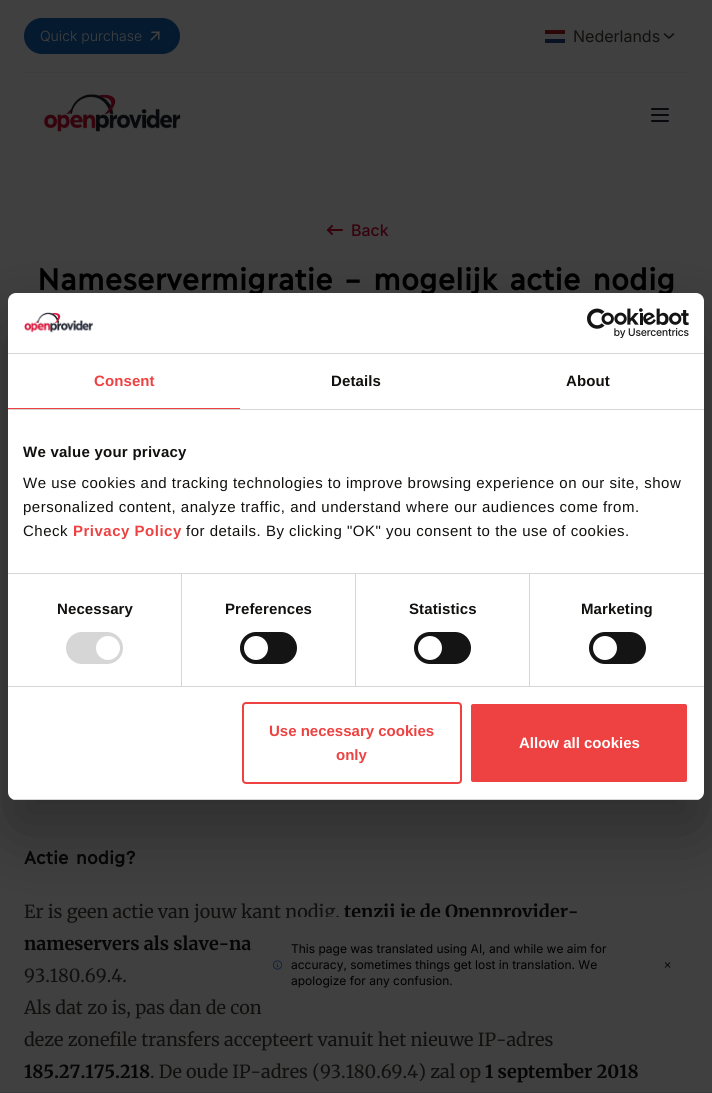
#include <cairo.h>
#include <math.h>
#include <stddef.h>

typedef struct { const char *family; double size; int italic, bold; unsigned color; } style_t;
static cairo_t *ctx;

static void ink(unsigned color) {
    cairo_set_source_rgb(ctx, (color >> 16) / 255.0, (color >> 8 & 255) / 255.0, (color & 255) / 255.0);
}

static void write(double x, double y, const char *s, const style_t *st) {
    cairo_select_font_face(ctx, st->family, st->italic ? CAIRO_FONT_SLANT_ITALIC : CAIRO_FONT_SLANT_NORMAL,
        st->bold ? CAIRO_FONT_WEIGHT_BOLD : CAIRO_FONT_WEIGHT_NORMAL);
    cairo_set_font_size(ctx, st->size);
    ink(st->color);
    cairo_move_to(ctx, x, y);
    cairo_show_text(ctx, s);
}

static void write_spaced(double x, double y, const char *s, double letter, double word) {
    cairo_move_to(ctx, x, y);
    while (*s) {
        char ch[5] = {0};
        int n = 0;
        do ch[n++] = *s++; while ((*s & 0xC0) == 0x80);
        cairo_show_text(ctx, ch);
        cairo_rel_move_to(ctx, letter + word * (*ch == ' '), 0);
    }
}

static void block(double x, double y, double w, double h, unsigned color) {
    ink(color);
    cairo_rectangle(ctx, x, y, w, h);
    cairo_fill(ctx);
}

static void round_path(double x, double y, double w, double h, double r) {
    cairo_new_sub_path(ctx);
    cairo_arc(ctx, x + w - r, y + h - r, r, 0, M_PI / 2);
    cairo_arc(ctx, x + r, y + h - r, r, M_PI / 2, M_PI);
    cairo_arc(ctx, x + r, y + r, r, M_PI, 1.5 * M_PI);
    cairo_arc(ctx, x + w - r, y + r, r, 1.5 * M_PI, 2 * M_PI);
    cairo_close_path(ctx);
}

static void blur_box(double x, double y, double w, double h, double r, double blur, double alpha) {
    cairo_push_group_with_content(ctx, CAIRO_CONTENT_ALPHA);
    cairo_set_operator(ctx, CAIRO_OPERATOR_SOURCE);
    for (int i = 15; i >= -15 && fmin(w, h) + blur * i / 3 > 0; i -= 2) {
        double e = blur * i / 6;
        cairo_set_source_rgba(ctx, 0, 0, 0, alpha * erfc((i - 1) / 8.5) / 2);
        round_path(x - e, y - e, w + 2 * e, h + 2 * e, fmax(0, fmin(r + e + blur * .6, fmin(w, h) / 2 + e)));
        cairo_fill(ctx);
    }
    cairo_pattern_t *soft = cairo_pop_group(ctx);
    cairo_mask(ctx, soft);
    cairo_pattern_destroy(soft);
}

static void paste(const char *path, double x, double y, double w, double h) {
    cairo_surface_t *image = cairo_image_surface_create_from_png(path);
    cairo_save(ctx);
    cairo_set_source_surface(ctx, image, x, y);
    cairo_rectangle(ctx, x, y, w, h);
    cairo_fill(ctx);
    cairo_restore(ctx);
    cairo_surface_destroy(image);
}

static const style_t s1 = {"Inter Light", 14, 0, 0, 0x404040};
static const style_t s2 = {"Inter", 16, 0, 0, 0x11100f};
static const style_t s3 = {"Inter Medium", 16, 0, 0, 0x36030d};
static const style_t s4 = {"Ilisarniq", 30, 0, 1, 0x000000};
static const style_t s5 = {"Ilisarniq", 18, 0, 1, 0x070606};
static const style_t s6 = {"Merriweather", 18, 0, 0, 0x11100f};
static const style_t s7 = {"Merriweather", 18, 0, 1, 0x070606};
static const style_t s8 = {"Inter", 12, 0, 0, 0x000000};
static const style_t s9 = {"Liberation Sans", 15, 0, 1, 0xed4241};
static const style_t s10 = {"Liberation Sans", 15, 0, 1, 0xffffff};

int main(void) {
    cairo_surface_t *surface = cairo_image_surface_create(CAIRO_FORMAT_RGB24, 712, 1093);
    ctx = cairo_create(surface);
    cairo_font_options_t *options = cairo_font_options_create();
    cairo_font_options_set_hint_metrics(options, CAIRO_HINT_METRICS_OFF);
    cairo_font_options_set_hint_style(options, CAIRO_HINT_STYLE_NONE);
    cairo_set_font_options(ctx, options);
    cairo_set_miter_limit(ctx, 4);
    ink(0x404040);
    cairo_paint(ctx);
    block(24, 72, 664, 1, 0x3c3d3f);
    ink(0x051a2e);
    round_path(24, 18, 156, 36, 18);
    cairo_fill(ctx);
    write(40, 41, "Quick purchase", &s1);
    paste("pic1.png", 150, 31, 10, 10);
    block(545, 30, 20, 4, 0x2c070a);
    block(545, 39, 20, 4, 0x081223);
    write(573, 42, "Nederlands", &s2);
    cairo_new_path(ctx);
    cairo_move_to(ctx, 664.5, 34);
    cairo_line_to(ctx, 669, 38);
    cairo_line_to(ctx, 673.5, 34);
    ink(0x0d0d0d);
    cairo_set_line_width(ctx, 1.5);
    cairo_set_line_cap(ctx, CAIRO_LINE_CAP_ROUND);
    cairo_set_line_join(ctx, CAIRO_LINE_JOIN_ROUND);
    cairo_stroke(ctx);
    paste("pic2.png", 44, 94, 137, 38);
    cairo_new_path(ctx);
    cairo_move_to(ctx, 652, 109);
    cairo_line_to(ctx, 668, 109);
    cairo_move_to(ctx, 652, 115);
    cairo_line_to(ctx, 668, 115);
    cairo_move_to(ctx, 652, 121);
    cairo_line_to(ctx, 668, 121);
    ink(0x07090c);
    cairo_set_line_width(ctx, 2);
    cairo_stroke(ctx);
    block(0, 1092, 712, 1, 0x393a3b);
    paste("pic3.png", 327, 225, 16, 10);
    write(351, 236, "Back", &s3);
    write(37, 290, "Nameservermigratie – mogelijk actie nodig", &s4);
    write(24, 864, "Actie nodig?", &s5);
    write(24, 918, "Er is geen actie van jouw kant nodig,", &s6);
    write(344, 918, "tenzij je de Openprovider-", &s7);
    write(24, 950, "nameservers als slave-na", &s7);
    write(24, 982, "93.180.69.4.", &s6);
    write(24, 1014, "Als dat zo is, pas dan de con", &s6);
    write(24, 1046, "deze zonefile transfers accepteert vanuit het nieuwe IP-adres", &s6);
    write(24, 1078, "185.27.175.218", &s7);
    write(150, 1078, ". De oude IP-adres (93.180.69.4) zal op", &s6);
    write(485, 1078, "1 september 2018", &s7);
    ink(0x404040);
    round_path(248, 917, 448, 96, 48);
    cairo_fill(ctx);
    paste("pic4.png", 272, 960, 11, 10);
    write(291, 953, "This page was translated using AI, and while we aim for", &s8);
    write(291, 969, "accuracy, sometimes things get lost in translation. We", &s8);
    write(291, 985, "apologize for any confusion.", &s8);
    paste("pic5.png", 664, 962, 7, 6);
    ink(0x000000);
    blur_box(8, 325, 696, 507, 8, 34, 0.3);
    ink(0xffffff);
    round_path(8, 293, 696, 507, 8);
    cairo_fill(ctx);
    block(8, 353, 696, 1, 0xd6d6d6);
    paste("pic6.png", 24, 312, 70, 21);
    paste("pic7.png", 587, 308, 102, 30);
    block(8, 409, 696, 1, 0xd6d6d6);
    block(8, 408, 232, 1, 0xed4241);
    cairo_select_font_face(ctx, "Liberation Sans", CAIRO_FONT_SLANT_NORMAL, CAIRO_FONT_WEIGHT_BOLD);
    cairo_set_font_size(ctx, 15);
    write_spaced(94, 386, "Consent", 0.1, 0);
    ink(0x11100f);
    write_spaced(331, 386, "Details", 0.1, 0);
    write_spaced(566, 386, "About", 0.1, 0);
    block(8, 573, 696, 1, 0xd6d6d6);
    ink(0x11100f);
    write_spaced(23, 457, "We value your privacy", 0.25, 0);
    cairo_select_font_face(ctx, "Liberation Sans", CAIRO_FONT_SLANT_NORMAL, CAIRO_FONT_WEIGHT_NORMAL);
    write_spaced(23, 488, "We use cookies and tracking technologies to improve browsing experience on our site, show", 0.5, 0);
    write_spaced(23, 512, "personalized content, analyze traffic, and understand where our audiences come from.", 0.5, 0);
    write_spaced(23, 536, "Check", 0.5, 0);
    cairo_select_font_face(ctx, "Liberation Sans", CAIRO_FONT_SLANT_NORMAL, CAIRO_FONT_WEIGHT_BOLD);
    ink(0xed4241);
    write_spaced(73, 536, "Privacy Policy", 0.5, 0);
    cairo_select_font_face(ctx, "Liberation Sans", CAIRO_FONT_SLANT_NORMAL, CAIRO_FONT_WEIGHT_NORMAL);
    ink(0x11100f);
    write_spaced(186, 536, "for details. By clicking \"OK\" you consent to the use of cookies.", 0.5, 0);
    block(8, 686, 696, 1, 0xd6d6d6);
    block(181, 574, 1, 112, 0xd6d6d6);
    cairo_select_font_face(ctx, "Liberation Sans", CAIRO_FONT_SLANT_NORMAL, CAIRO_FONT_WEIGHT_BOLD);
    ink(0x11100f);
    write_spaced(57, 614, "Necessary", 0.1, 0);
    ink(0xd6d6d6);
    round_path(66, 632, 57, 32, 16);
    cairo_fill(ctx);
    ink(0xffffff);
    cairo_arc(ctx, 108, 648, 12, 0, 2 * M_PI);
    cairo_fill(ctx);
    block(355, 574, 1, 112, 0xd6d6d6);
    ink(0x11100f);
    write_spaced(225, 614, "Preferences", 0.1, 0);
    ink(0x141414);
    round_path(240, 632, 57, 32, 16);
    cairo_fill(ctx);
    ink(0xffffff);
    cairo_arc(ctx, 256, 648, 12, 0, 2 * M_PI);
    cairo_fill(ctx);
    block(529, 574, 1, 112, 0xd6d6d6);
    ink(0x11100f);
    write_spaced(409, 614, "Statistics", 0.1, 0);
    ink(0x141414);
    round_path(414, 632, 57, 32, 16);
    cairo_fill(ctx);
    ink(0xffffff);
    cairo_arc(ctx, 430, 648, 12, 0, 2 * M_PI);
    cairo_fill(ctx);
    ink(0x11100f);
    write_spaced(581, 614, "Marketing", 0.1, 0);
    ink(0x141414);
    round_path(589, 632, 57, 32, 16);
    cairo_fill(ctx);
    ink(0xffffff);
    cairo_arc(ctx, 605, 648, 12, 0, 2 * M_PI);
    cairo_fill(ctx);
    cairo_save(ctx);
    round_path(8, 293, 696, 507, 8);
    cairo_clip(ctx);
    block(8, 799, 696, 1, 0xd6d6d6);
    cairo_restore(ctx);
    round_path(243, 703, 218, 80, 3);
    ink(0xed4241);
    cairo_set_line_cap(ctx, CAIRO_LINE_CAP_BUTT);
    cairo_set_line_join(ctx, CAIRO_LINE_JOIN_MITER);
    cairo_stroke(ctx);
    write(269, 736, "Use necessary cookies", &s9);
    write(336, 760, "only", &s9);
    round_path(470, 703, 218, 80, 3);
    cairo_fill_preserve(ctx);
    ink(0xffffff);
    cairo_stroke(ctx);
    write(519, 748, "Allow all cookies", &s10);
    cairo_surface_write_to_png(surface, "screenshot.png");
    cairo_font_options_destroy(options);
    cairo_destroy(ctx);
    cairo_surface_destroy(surface);
    return 0;
}
